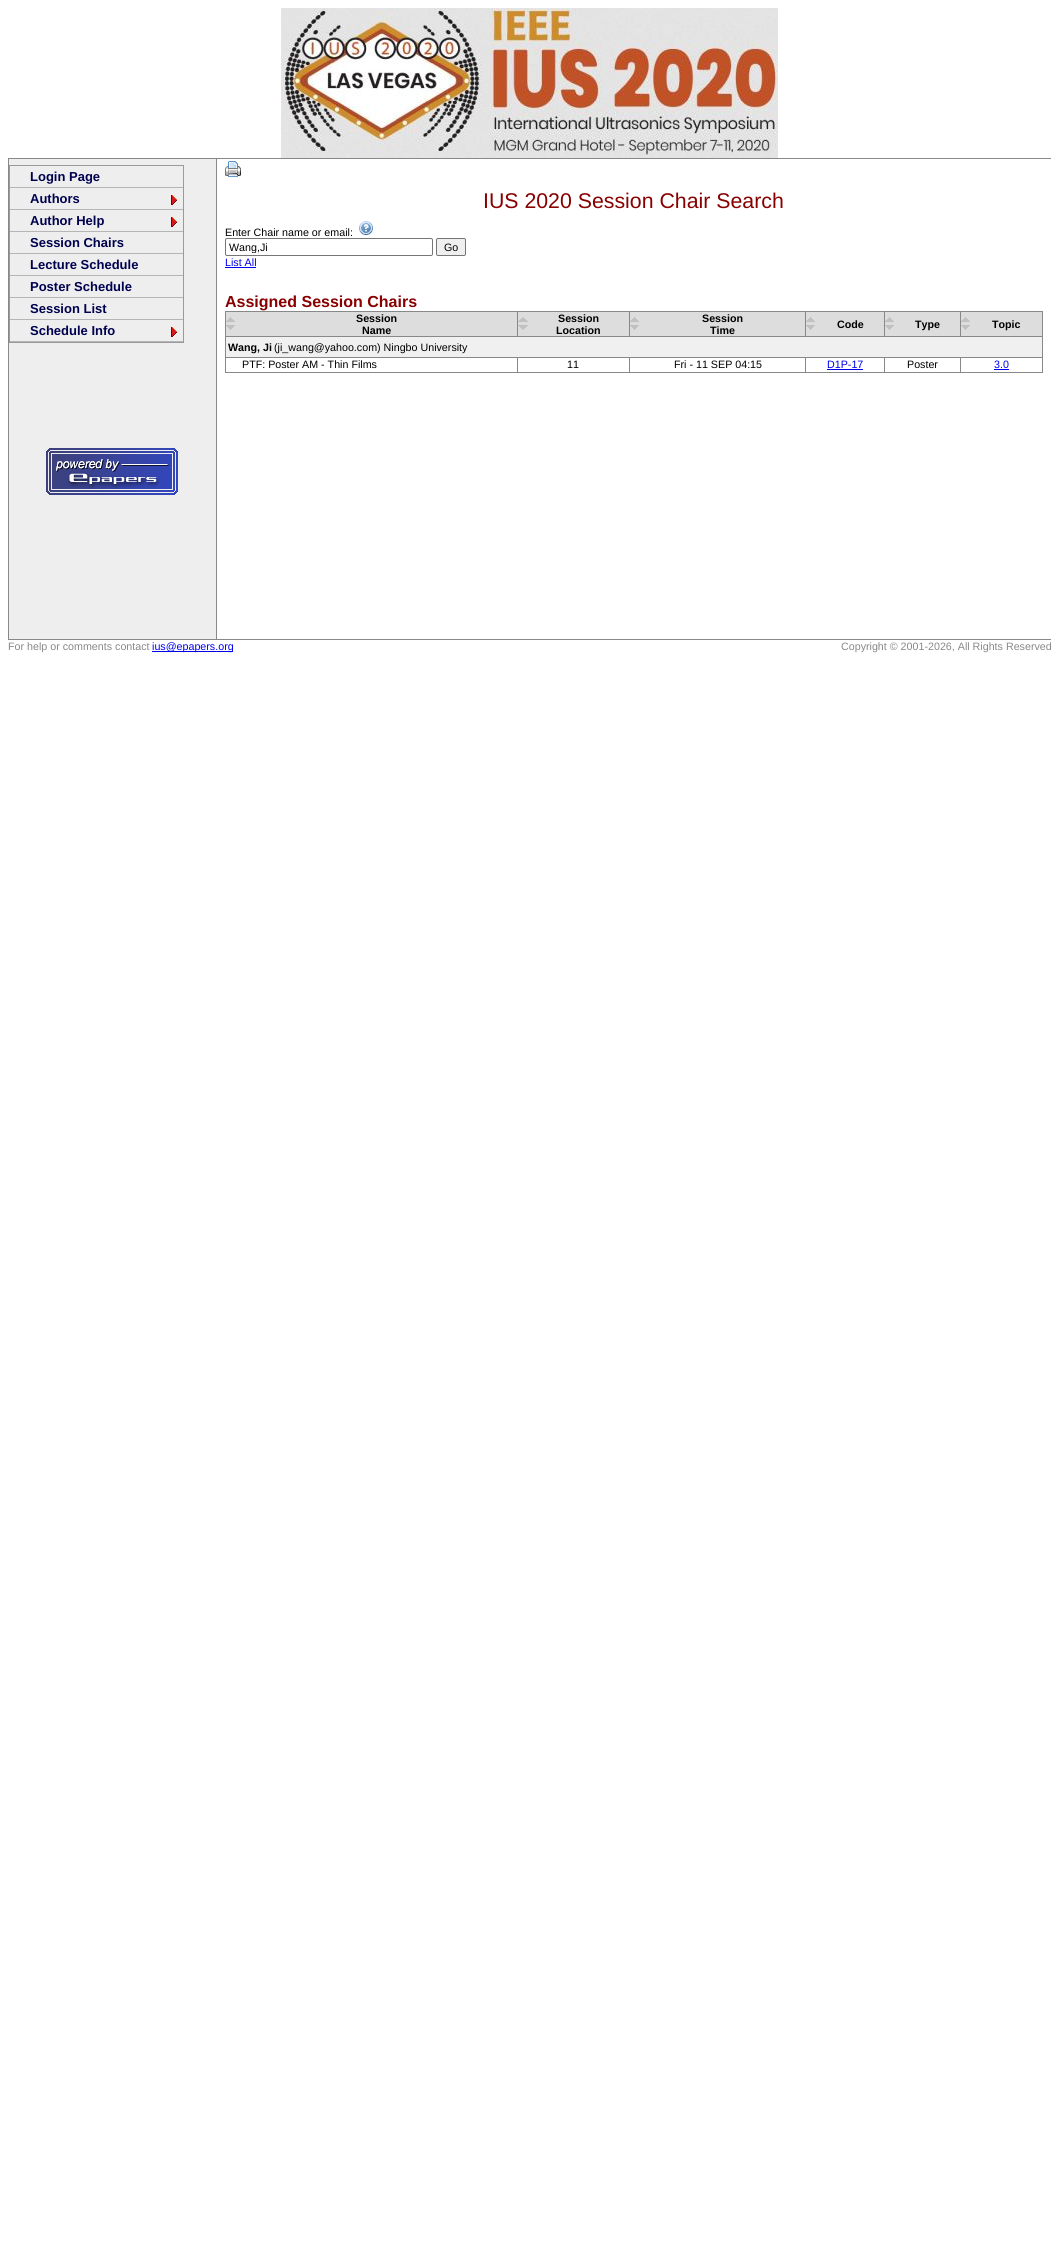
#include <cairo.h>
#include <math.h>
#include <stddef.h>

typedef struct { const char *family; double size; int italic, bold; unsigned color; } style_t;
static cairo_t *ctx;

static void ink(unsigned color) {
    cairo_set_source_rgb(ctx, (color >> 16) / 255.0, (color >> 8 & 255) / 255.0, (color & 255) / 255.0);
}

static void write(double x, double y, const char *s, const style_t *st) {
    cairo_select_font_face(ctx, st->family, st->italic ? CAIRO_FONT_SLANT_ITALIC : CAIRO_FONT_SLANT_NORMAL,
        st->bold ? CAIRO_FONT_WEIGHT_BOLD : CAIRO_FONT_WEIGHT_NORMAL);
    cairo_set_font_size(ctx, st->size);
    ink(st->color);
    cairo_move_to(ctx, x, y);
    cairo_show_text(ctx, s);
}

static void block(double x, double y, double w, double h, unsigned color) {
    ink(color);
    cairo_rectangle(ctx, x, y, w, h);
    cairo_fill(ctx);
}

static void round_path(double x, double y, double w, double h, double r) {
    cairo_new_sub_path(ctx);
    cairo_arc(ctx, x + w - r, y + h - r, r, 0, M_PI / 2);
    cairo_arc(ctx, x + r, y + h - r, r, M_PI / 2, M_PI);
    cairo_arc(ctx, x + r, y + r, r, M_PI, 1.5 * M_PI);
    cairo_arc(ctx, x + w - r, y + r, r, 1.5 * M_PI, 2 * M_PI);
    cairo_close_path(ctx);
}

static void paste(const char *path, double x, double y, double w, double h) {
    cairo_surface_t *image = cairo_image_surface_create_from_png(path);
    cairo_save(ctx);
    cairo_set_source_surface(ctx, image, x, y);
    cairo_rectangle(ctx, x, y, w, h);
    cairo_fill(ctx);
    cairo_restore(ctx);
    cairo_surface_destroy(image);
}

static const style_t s1 = {"Liberation Sans", 13, 0, 1, 0x00014e};
static const style_t s2 = {"Liberation Sans", 21.3, 0, 0, 0x880000};
static const style_t s3 = {"Liberation Sans", 10.7, 0, 0, 0x000000};
static const style_t s4 = {"Liberation Sans", 10.7, 0, 0, 0x0000ee};
static const style_t s5 = {"Liberation Sans", 16, 0, 1, 0x880000};
static const style_t s6 = {"Liberation Sans", 10.7, 0, 1, 0x000000};
static const style_t s7 = {"Liberation Sans", 10.7, 0, 0, 0x888888};

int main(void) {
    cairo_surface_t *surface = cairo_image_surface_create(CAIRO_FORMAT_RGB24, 1059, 2254);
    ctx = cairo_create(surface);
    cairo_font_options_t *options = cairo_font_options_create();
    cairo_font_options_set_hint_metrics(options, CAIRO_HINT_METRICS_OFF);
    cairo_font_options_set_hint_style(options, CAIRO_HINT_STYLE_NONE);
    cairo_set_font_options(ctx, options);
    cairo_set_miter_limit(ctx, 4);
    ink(0xffffff);
    cairo_paint(ctx);
    block(8, 158, 1043, 1, 0x888888);
    paste("pic1.png", 281, 8, 497, 150);
    block(9, 159, 207, 480, 0xeeeeee);
    block(216, 159, 1, 480, 0x888888);
    block(8, 159, 1, 480, 0x888888);
    cairo_rectangle(ctx, 9.5, 165.5, 174, 177);
    ink(0x9a9a9a);
    cairo_set_line_width(ctx, 1);
    cairo_stroke(ctx);
    block(10, 187, 173, 1, 0xb5b5b5);
    write(30, 181, "Login Page", &s1);
    block(10, 209, 173, 1, 0xb5b5b5);
    write(30, 203, "Authors", &s1);
    paste("pic2.png", 171, 195, 6, 10);
    block(10, 231, 173, 1, 0xb5b5b5);
    write(30, 225, "Author Help", &s1);
    paste("pic2.png", 171, 217, 6, 10);
    block(10, 253, 173, 1, 0xb5b5b5);
    write(30, 247, "Session Chairs", &s1);
    block(10, 275, 173, 1, 0xb5b5b5);
    write(30, 269, "Lecture Schedule", &s1);
    block(10, 297, 173, 1, 0xb5b5b5);
    write(30, 291, "Poster Schedule", &s1);
    block(10, 319, 173, 1, 0xb5b5b5);
    write(30, 313, "Session List", &s1);
    block(10, 341, 173, 1, 0xb5b5b5);
    write(30, 335, "Schedule Info", &s1);
    paste("pic2.png", 171, 327, 6, 10);
    paste("pic3.png", 46, 448, 132, 47);
    paste("pic4.png", 225, 161, 16, 16);
    write(483, 208, "IUS 2020 Session Chair Search", &s2);
    write(225, 236, "Enter Chair name or email:", &s3);
    paste("pic5.png", 359, 221, 14, 14);
    round_path(225.5, 238.5, 207, 17, 1.5);
    ink(0x767676);
    cairo_stroke(ctx);
    cairo_save(ctx);
    cairo_rectangle(ctx, 229, 241, 200, 12);
    cairo_clip(ctx);
    write(229, 251, "Wang,Ji", &s3);
    cairo_restore(ctx);
    ink(0xefefef);
    round_path(436.5, 238.5, 29, 17, 1.5);
    cairo_fill_preserve(ctx);
    ink(0x767676);
    cairo_stroke(ctx);
    write(444, 251, "Go", &s3);
    write(225, 266, "List All", &s4);
    block(225, 267, 31, 1, 0x0000ee);
    write(225, 307, "Assigned Session Chairs", &s5);
    block(226, 312, 291, 24, 0xdddddd);
    paste("pic6.png", 226, 317, 9, 13);
    cairo_rectangle(ctx, 225.5, 311.5, 292, 25);
    ink(0x888888);
    cairo_stroke(ctx);
    write(356, 322, "Session", &s6);
    write(362, 334, "Name", &s6);
    block(518, 312, 111, 24, 0xdddddd);
    paste("pic7.png", 518, 317, 10, 13);
    block(518, 311, 525, 1, 0x888888);
    block(629, 311, 1, 26, 0x888888);
    block(518, 336, 112, 1, 0x888888);
    write(558, 322, "Session", &s6);
    write(556, 334, "Location", &s6);
    block(630, 312, 175, 24, 0xdddddd);
    paste("pic6.png", 630, 317, 9, 13);
    block(805, 311, 1, 26, 0x888888);
    block(630, 336, 176, 1, 0x888888);
    write(702, 322, "Session", &s6);
    write(710, 334, "Time", &s6);
    block(806, 312, 78, 24, 0xdddddd);
    paste("pic6.png", 806, 317, 9, 13);
    block(884, 311, 1, 26, 0x888888);
    block(806, 336, 79, 1, 0x888888);
    write(837, 328, "Code", &s6);
    block(885, 312, 75, 24, 0xdddddd);
    paste("pic6.png", 885, 317, 9, 13);
    block(960, 311, 1, 26, 0x888888);
    block(885, 336, 76, 1, 0x888888);
    write(915, 328, "Type", &s6);
    block(961, 312, 81, 24, 0xdddddd);
    paste("pic6.png", 961, 317, 9, 13);
    block(1042, 311, 1, 62, 0x888888);
    block(961, 336, 82, 1, 0x888888);
    write(992, 328, "Topic", &s6);
    block(226, 337, 816, 20, 0xf0f0f0);
    block(225, 357, 818, 1, 0x888888);
    block(225, 337, 1, 21, 0x888888);
    write(228, 351, "Wang, Ji", &s6);
    write(274, 351, "(ji_wang@yahoo.com) Ningbo University", &s3);
    block(517, 358, 1, 15, 0x888888);
    block(225, 372, 293, 1, 0x888888);
    block(225, 358, 1, 15, 0x888888);
    write(242, 368, "PTF: Poster AM - Thin Films", &s3);
    block(629, 358, 1, 15, 0x888888);
    block(518, 372, 112, 1, 0x888888);
    write(567, 368, "11", &s3);
    block(805, 358, 1, 15, 0x888888);
    block(630, 372, 176, 1, 0x888888);
    write(674, 368, "Fri - 11 SEP 04:15", &s3);
    block(884, 358, 1, 15, 0x888888);
    block(806, 372, 79, 1, 0x888888);
    write(827, 368, "D1P-17", &s4);
    block(827, 369, 36, 1, 0x0000ee);
    block(960, 358, 1, 15, 0x888888);
    block(885, 372, 158, 1, 0x888888);
    write(907, 368, "Poster", &s3);
    write(994, 368, "3.0", &s4);
    block(994, 369, 15, 1, 0x0000ee);
    block(8, 639, 1043, 1, 0x888888);
    write(8, 650, "For help or comments contact", &s7);
    block(152, 651, 81, 1, 0x0000ee);
    write(152, 650, "ius@epapers.org", &s4);
    write(841, 650, "Copyright © 2001-2026, All Rights Reserved", &s7);
    cairo_surface_write_to_png(surface, "screenshot.png");
    cairo_font_options_destroy(options);
    cairo_destroy(ctx);
    cairo_surface_destroy(surface);
    return 0;
}
